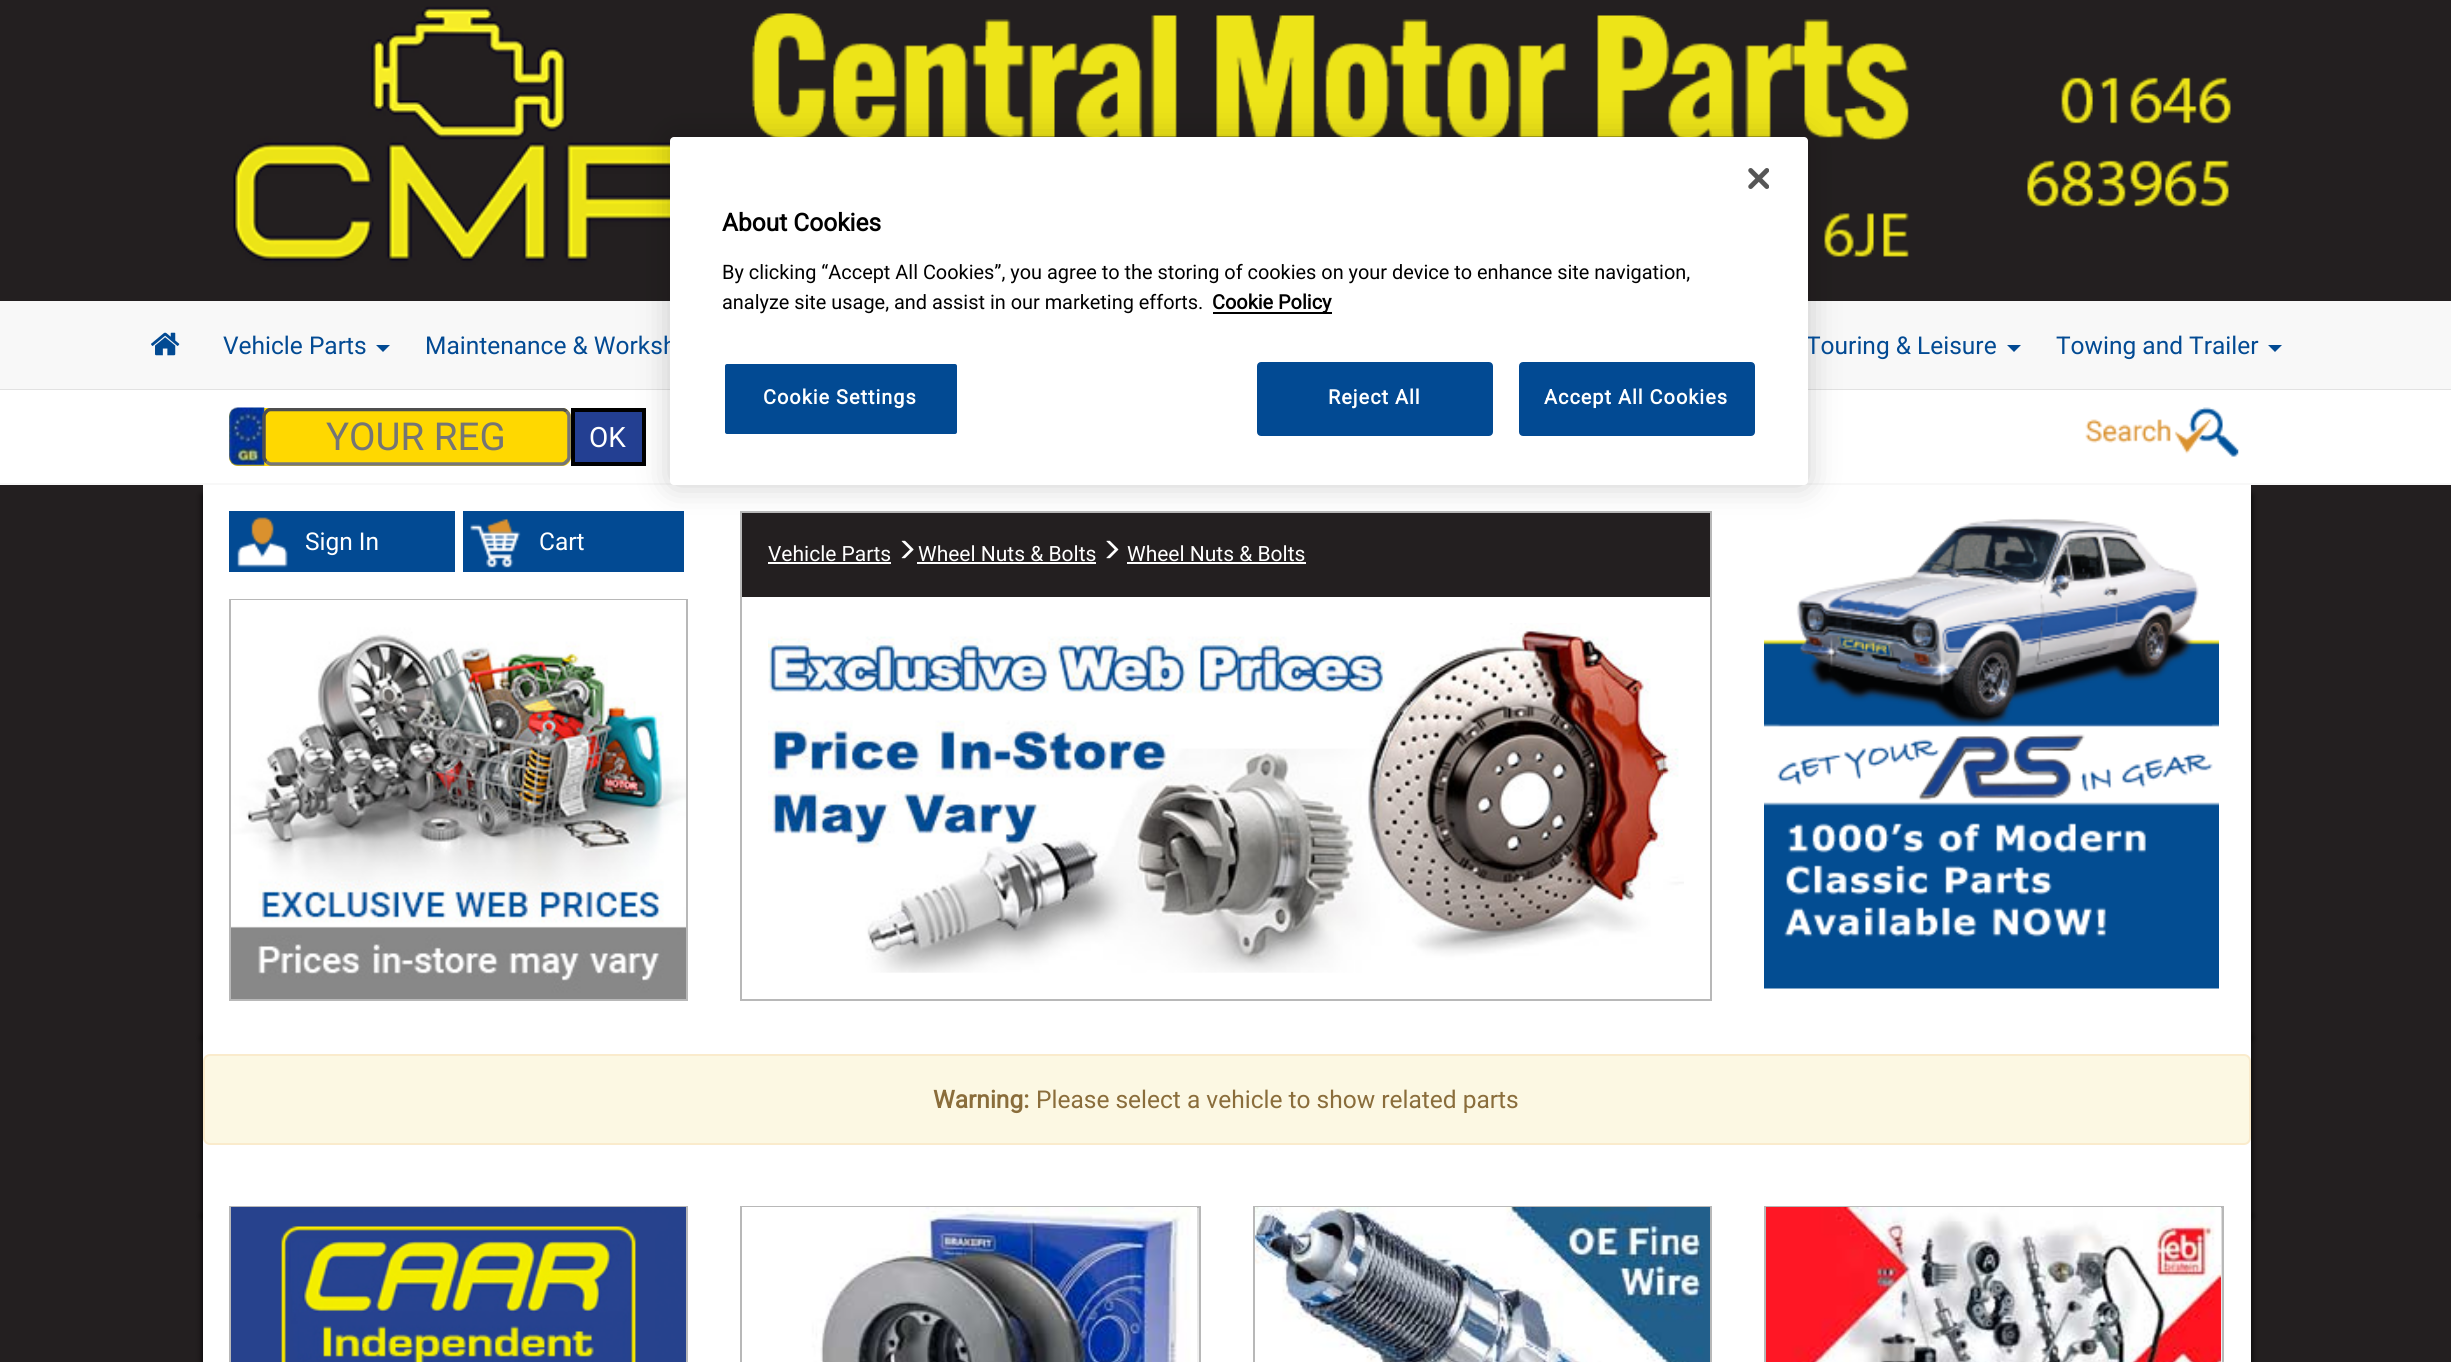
#include <cairo.h>
#include <math.h>
#include <stddef.h>

typedef struct { const char *family; double size; int italic, bold; unsigned color; } style_t;
static cairo_t *ctx;

static void ink(unsigned color) {
    cairo_set_source_rgb(ctx, (color >> 16) / 255.0, (color >> 8 & 255) / 255.0, (color & 255) / 255.0);
}

static void write(double x, double y, const char *s, const style_t *st) {
    cairo_select_font_face(ctx, st->family, st->italic ? CAIRO_FONT_SLANT_ITALIC : CAIRO_FONT_SLANT_NORMAL,
        st->bold ? CAIRO_FONT_WEIGHT_BOLD : CAIRO_FONT_WEIGHT_NORMAL);
    cairo_set_font_size(ctx, st->size);
    ink(st->color);
    cairo_move_to(ctx, x, y);
    cairo_show_text(ctx, s);
}

static void write_spaced(double x, double y, const char *s, double letter, double word) {
    cairo_move_to(ctx, x, y);
    while (*s) {
        char ch[5] = {0};
        int n = 0;
        do ch[n++] = *s++; while ((*s & 0xC0) == 0x80);
        cairo_show_text(ctx, ch);
        cairo_rel_move_to(ctx, letter + word * (*ch == ' '), 0);
    }
}

static void block(double x, double y, double w, double h, unsigned color) {
    ink(color);
    cairo_rectangle(ctx, x, y, w, h);
    cairo_fill(ctx);
}

static void round_path(double x, double y, double w, double h, double r) {
    cairo_new_sub_path(ctx);
    cairo_arc(ctx, x + w - r, y + h - r, r, 0, M_PI / 2);
    cairo_arc(ctx, x + r, y + h - r, r, M_PI / 2, M_PI);
    cairo_arc(ctx, x + r, y + r, r, M_PI, 1.5 * M_PI);
    cairo_arc(ctx, x + w - r, y + r, r, 1.5 * M_PI, 2 * M_PI);
    cairo_close_path(ctx);
}

static void blur_box(double x, double y, double w, double h, double r, double blur, double alpha) {
    cairo_push_group_with_content(ctx, CAIRO_CONTENT_ALPHA);
    cairo_set_operator(ctx, CAIRO_OPERATOR_SOURCE);
    for (int i = 15; i >= -15 && fmin(w, h) + blur * i / 3 > 0; i -= 2) {
        double e = blur * i / 6;
        cairo_set_source_rgba(ctx, 0, 0, 0, alpha * erfc((i - 1) / 8.5) / 2);
        round_path(x - e, y - e, w + 2 * e, h + 2 * e, fmax(0, fmin(r + e + blur * .6, fmin(w, h) / 2 + e)));
        cairo_fill(ctx);
    }
    cairo_pattern_t *soft = cairo_pop_group(ctx);
    cairo_mask(ctx, soft);
    cairo_pattern_destroy(soft);
}

static void paste(const char *path, double x, double y, double w, double h) {
    cairo_surface_t *image = cairo_image_surface_create_from_png(path);
    cairo_save(ctx);
    cairo_set_source_surface(ctx, image, x, y);
    cairo_rectangle(ctx, x, y, w, h);
    cairo_fill(ctx);
    cairo_restore(ctx);
    cairo_surface_destroy(image);
}

static const style_t s1 = {"Roboto", 24.5, 0, 0, 0x024a93};
static const style_t s2 = {"Roboto", 24.5, 0, 1, 0x000000};
static const style_t s3 = {"Roboto", 19.9, 0, 0, 0x000000};
static const style_t s4 = {"Roboto", 19.9, 0, 1, 0x000000};
static const style_t s5 = {"Roboto", 38.5, 0, 0, 0x757575};
static const style_t s6 = {"Roboto", 28, 0, 0, 0xffffff};
static const style_t s7 = {"Roboto", 24.5, 0, 0, 0xffffff};
static const style_t s8 = {"Roboto", 21, 0, 0, 0xffffff};
static const style_t s9 = {"Roboto", 24.5, 0, 1, 0x8a6d3b};
static const style_t s10 = {"Roboto", 24.5, 0, 0, 0x8a6d3b};

int main(void) {
    cairo_surface_t *surface = cairo_image_surface_create(CAIRO_FORMAT_RGB24, 2451, 1362);
    ctx = cairo_create(surface);
    cairo_font_options_t *options = cairo_font_options_create();
    cairo_font_options_set_hint_metrics(options, CAIRO_HINT_METRICS_OFF);
    cairo_font_options_set_hint_style(options, CAIRO_HINT_STYLE_NONE);
    cairo_set_font_options(ctx, options);
    cairo_set_miter_limit(ctx, 4);
    cairo_pattern_t *gradient;
    ink(0x231f20);
    cairo_paint(ctx);
    paste("pic2.png", 233, 6, 1998, 267);
    block(0, 301, 2451, 88, 0xf8f8f8);
    block(0, 389, 2451, 1, 0xe2e2e2);
    block(0, 390, 2451, 93, 0xffffff);
    block(0, 483, 2451, 2, 0xf8f8f8);
    ink(0x233f92);
    cairo_rectangle(ctx, 573, 410, 71, 54);
    cairo_fill_preserve(ctx);
    ink(0x000000);
    cairo_set_line_width(ctx, 4);
    cairo_stroke(ctx);
    ink(0x000000);
    blur_box(203, 495, 2048, 543, 0, 3.5, 1);
    block(203, 485, 2048, 542, 0xffffff);
    block(463, 511, 221, 61, 0x024a93);
    cairo_rectangle(ctx, 741, 512, 970, 488);
    ink(0xb8b8b8);
    cairo_set_line_width(ctx, 2);
    cairo_stroke(ctx);
    block(742, 513, 968, 84, 0x231f20);
    paste("pic12.png", 1764, 518, 455, 471);
    ink(0x000000);
    blur_box(670, 137, 1138, 348, 4, 16, 0.2);
    write(425, 354, "Maintenance & Worksh", &s1);
    write(1806, 354, "Touring & Leisure", &s1);
    ink(0xffffff);
    round_path(670, 137, 1138, 348, 4);
    cairo_fill(ctx);
    paste("pic1.png", 1748, 168, 21, 21);
    write(722, 231, "About Cookies", &s2);
    write(722, 279, "By clicking “Accept All Cookies”, you agree to the storing of cookies on your device to enhance site navigation,", &s3);
    write(722, 309, "analyze site usage, and assist in our marketing efforts.", &s3);
    block(1213, 312, 119, 2, 0x000000);
    write(1212, 309, "Cookie Policy", &s4);
    ink(0x024a93);
    round_path(724, 363, 234, 72, 3);
    cairo_fill_preserve(ctx);
    ink(0xffffff);
    cairo_stroke(ctx);
    write_spaced(763, 404, "Cookie Settings", 1, 0);
    ink(0x024a93);
    round_path(1258, 363, 234, 72, 3);
    cairo_fill_preserve(ctx);
    cairo_stroke(ctx);
    ink(0xffffff);
    write_spaced(1328, 404, "Reject All", 1, 0);
    ink(0x024a93);
    round_path(1520, 363, 234, 72, 3);
    cairo_fill_preserve(ctx);
    cairo_stroke(ctx);
    ink(0xffffff);
    write_spaced(1544, 404, "Accept All Cookies", 1, 0);
    paste("pic3.png", 151, 332, 29, 24);
    write(223, 354, "Vehicle Parts", &s1);
    cairo_new_path(ctx);
    cairo_move_to(ctx, 376, 345);
    cairo_line_to(ctx, 390, 345);
    cairo_line_to(ctx, 383, 352);
    cairo_close_path(ctx);
    cairo_fill(ctx);
    cairo_new_path(ctx);
    cairo_move_to(ctx, 2007, 345);
    cairo_line_to(ctx, 2021, 345);
    cairo_line_to(ctx, 2014, 352);
    cairo_close_path(ctx);
    cairo_fill(ctx);
    write(2056, 354, "Towing and Trailer", &s1);
    cairo_new_path(ctx);
    cairo_move_to(ctx, 2268, 345);
    cairo_line_to(ctx, 2282, 345);
    cairo_line_to(ctx, 2275, 352);
    cairo_close_path(ctx);
    cairo_fill(ctx);
    ink(0xffd800);
    round_path(229, 408, 342, 58, 9);
    cairo_fill(ctx);
    paste("pic4.png", 229, 407, 36, 59);
    cairo_new_path(ctx);
    cairo_move_to(ctx, 566.5, 411.5);
    cairo_curve_to(ctx, 568, 413, 569, 414.5, 569, 416.5);
    cairo_line_to(ctx, 569, 457);
    cairo_curve_to(ctx, 569, 458.5, 568, 460.5, 566.5, 461.5);
    cairo_curve_to(ctx, 565.5, 463, 563.5, 464, 562, 464);
    cairo_line_to(ctx, 271, 464);
    cairo_curve_to(ctx, 269.5, 464, 267.5, 463, 266.5, 461.5);
    ink(0x767676);
    cairo_set_line_width(ctx, 3.5);
    cairo_stroke(ctx);
    cairo_save(ctx);
    cairo_rectangle(ctx, 229, 408, 457, 58);
    cairo_clip(ctx);
    cairo_new_path(ctx);
    cairo_move_to(ctx, 266.5, 461.5);
    cairo_curve_to(ctx, 265, 460.5, 264, 458.5, 264, 457);
    cairo_line_to(ctx, 264, 416.5);
    cairo_curve_to(ctx, 264, 414.5, 265, 413, 266.5, 411.5);
    cairo_curve_to(ctx, 267.5, 410, 269.5, 409.5, 271, 409.5);
    cairo_line_to(ctx, 562, 409.5);
    cairo_curve_to(ctx, 563.5, 409.5, 565.5, 410, 566.5, 411.5);
    ink(0x4f4f4f);
    cairo_stroke(ctx);
    cairo_restore(ctx);
    write(326, 450, "YOUR REG", &s5);
    write(589, 447, "OK", &s6);
    paste("pic5.png", 2085, 407, 154, 50);
    block(229, 511, 226, 61, 0x024a93);
    paste("pic6.png", 237, 517, 51, 51);
    write(305, 550, "Sign In", &s7);
    paste("pic7.png", 470, 518, 51, 50);
    write(539, 550, "Cart", &s7);
    cairo_rectangle(ctx, 230, 600, 457, 400);
    ink(0xb8b8b8);
    cairo_set_line_width(ctx, 2);
    cairo_stroke(ctx);
    paste("pic8.png", 231, 600, 455, 399);
    write(768, 561, "Vehicle Parts", &s8);
    block(768, 562, 123, 2, 0xffffff);
    paste("pic9.png", 901, 540, 13, 19);
    write(918, 561, "Wheel Nuts & Bolts", &s8);
    block(917, 562, 179, 2, 0xffffff);
    paste("pic10.png", 1106, 540, 13, 19);
    write(1127, 561, "Wheel Nuts & Bolts", &s8);
    block(1127, 562, 179, 2, 0xffffff);
    paste("pic11.png", 768, 623, 916, 350);
    ink(0x000000);
    blur_box(203, 1038, 2048, 178, 0, 3.5, 1);
    block(203, 1027, 2048, 179, 0xffffff);
    ink(0xfcf8e3);
    round_path(204, 1055, 2046, 89, 6);
    cairo_fill_preserve(ctx);
    ink(0xfaebcc);
    cairo_stroke(ctx);
    write(933, 1108, "Warning:", &s9);
    write(1036, 1108, "Please select a vehicle to show related parts", &s10);
    ink(0x000000);
    blur_box(203, 1216, 2048, 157, 0, 3.5, 1);
    block(203, 1206, 2048, 156, 0xffffff);
    cairo_rectangle(ctx, 230, 1207, 457, 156);
    ink(0xb8b8b8);
    cairo_stroke(ctx);
    paste("pic13.png", 231, 1207, 455, 155);
    gradient = cairo_pattern_create_linear(970, 1208, 970, 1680);
    cairo_pattern_add_color_stop_rgba(gradient, 0, 0.859, 0.859, 0.859, 1);
    cairo_pattern_add_color_stop_rgba(gradient, 0.45, 0.98, 0.98, 0.98, 1);
    cairo_pattern_add_color_stop_rgba(gradient, 1, 0.922, 0.922, 0.922, 1);
    cairo_set_source(ctx, gradient);
    cairo_pattern_destroy(gradient);
    cairo_rectangle(ctx, 1197, 1208, 2, 154);
    cairo_fill(ctx);
    cairo_rectangle(ctx, 741, 1207, 459, 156);
    ink(0xb8b8b8);
    cairo_stroke(ctx);
    paste("pic14.png", 742, 1207, 455, 155);
    cairo_rectangle(ctx, 1254, 1207, 457, 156);
    cairo_stroke(ctx);
    paste("pic15.png", 1255, 1207, 455, 155);
    gradient = cairo_pattern_create_linear(1994, 1208, 1994, 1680);
    cairo_pattern_add_color_stop_rgba(gradient, 0, 0.859, 0.859, 0.859, 1);
    cairo_pattern_add_color_stop_rgba(gradient, 0.45, 0.98, 0.98, 0.98, 1);
    cairo_pattern_add_color_stop_rgba(gradient, 1, 0.922, 0.922, 0.922, 1);
    cairo_set_source(ctx, gradient);
    cairo_pattern_destroy(gradient);
    cairo_rectangle(ctx, 2221, 1208, 1, 154);
    cairo_fill(ctx);
    cairo_rectangle(ctx, 1765, 1207, 458, 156);
    ink(0xb8b8b8);
    cairo_stroke(ctx);
    paste("pic16.png", 1766, 1207, 455, 155);
    cairo_surface_write_to_png(surface, "screenshot.png");
    cairo_font_options_destroy(options);
    cairo_destroy(ctx);
    cairo_surface_destroy(surface);
    return 0;
}
